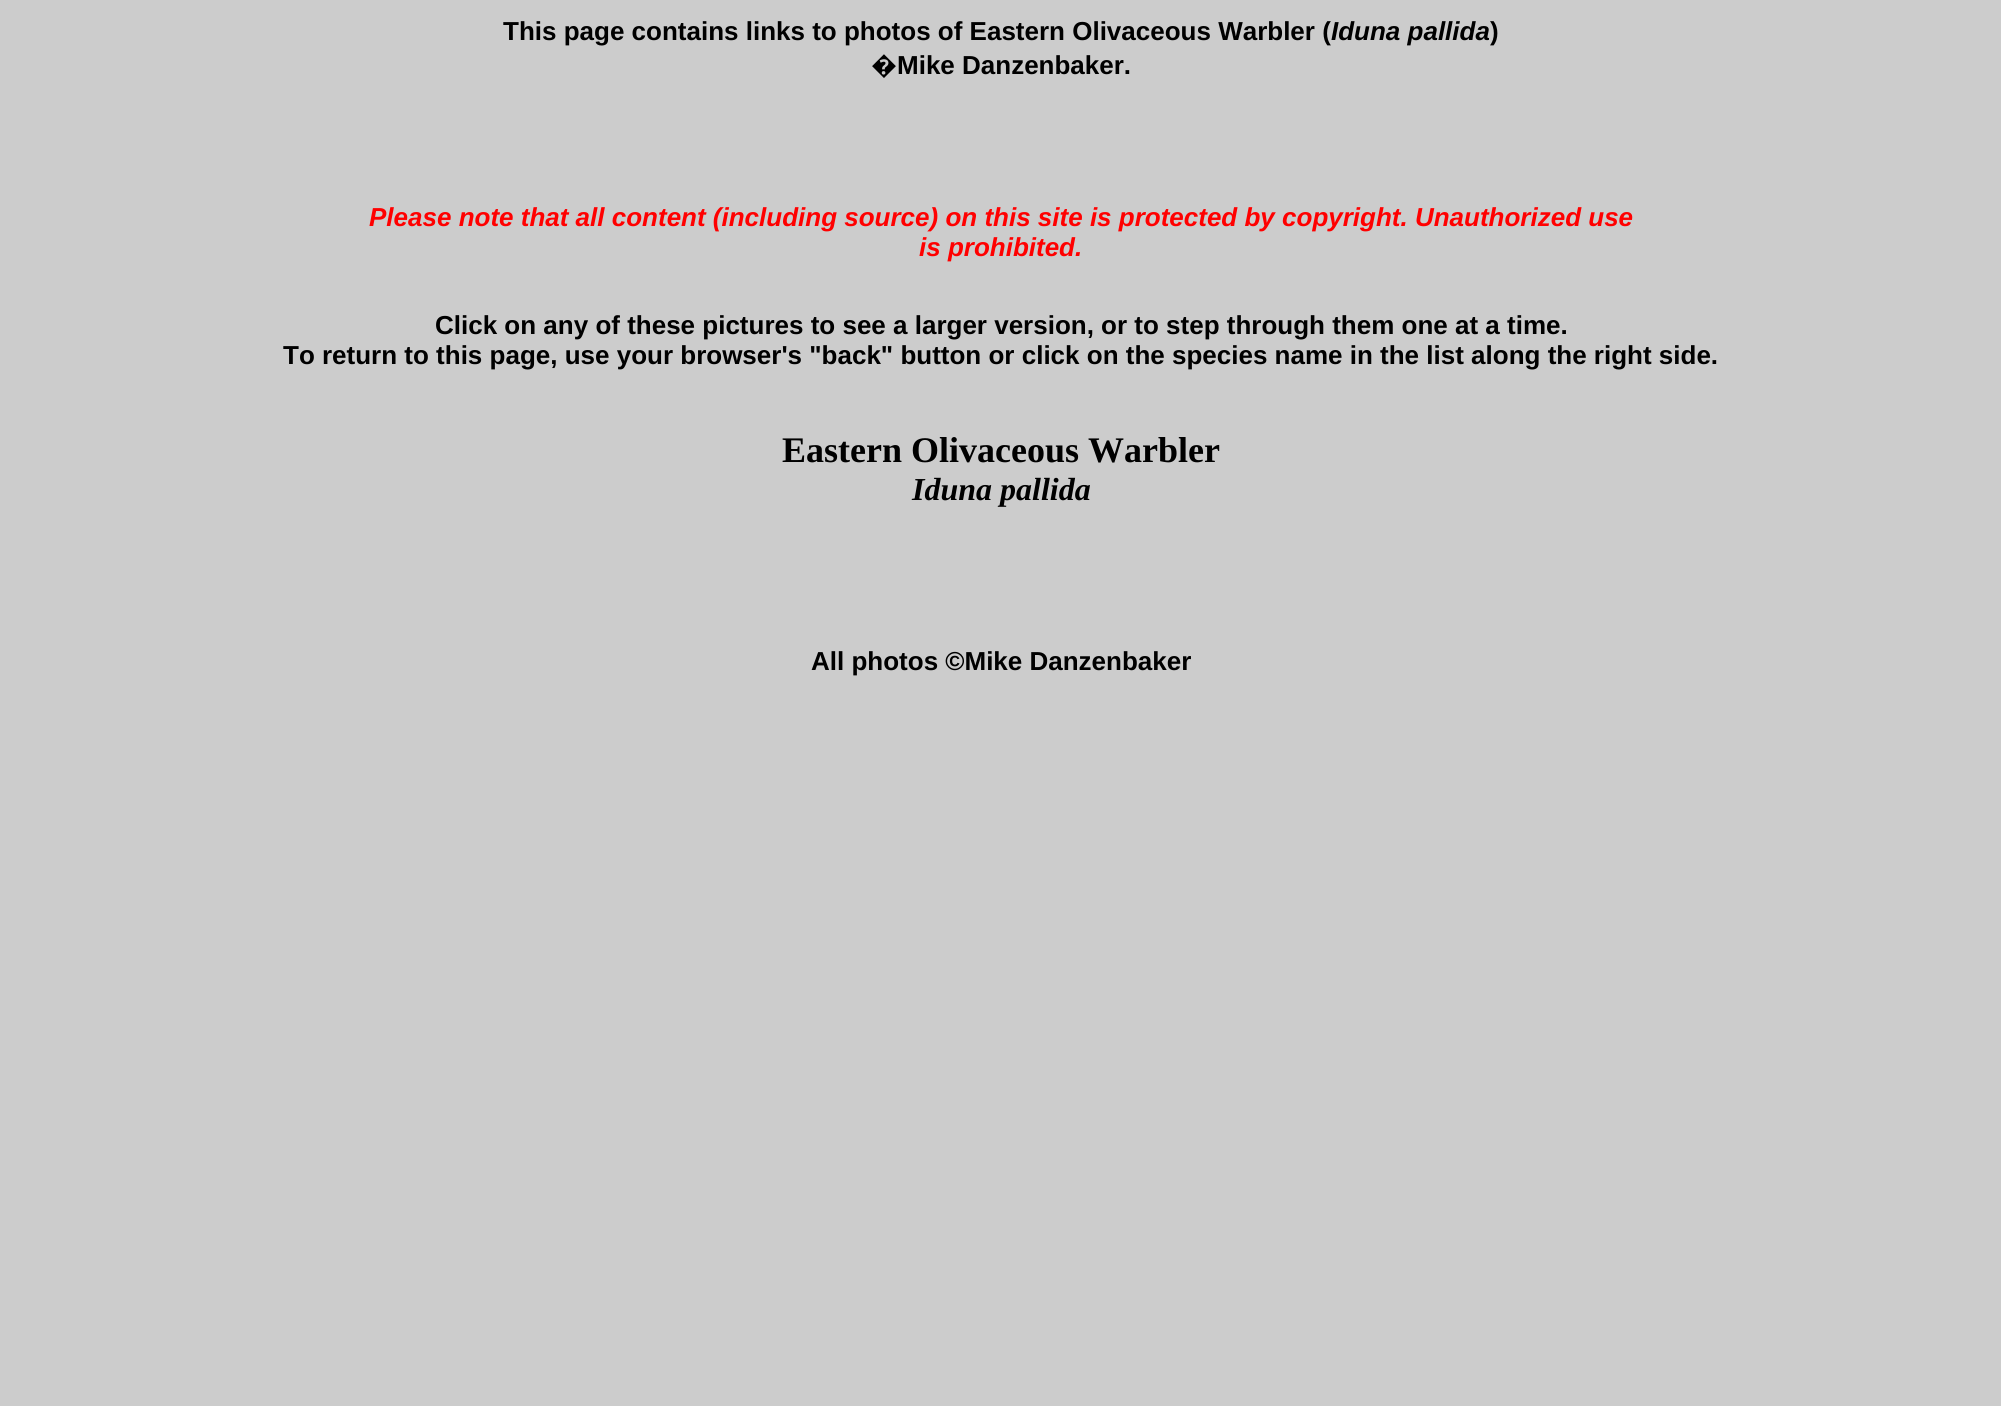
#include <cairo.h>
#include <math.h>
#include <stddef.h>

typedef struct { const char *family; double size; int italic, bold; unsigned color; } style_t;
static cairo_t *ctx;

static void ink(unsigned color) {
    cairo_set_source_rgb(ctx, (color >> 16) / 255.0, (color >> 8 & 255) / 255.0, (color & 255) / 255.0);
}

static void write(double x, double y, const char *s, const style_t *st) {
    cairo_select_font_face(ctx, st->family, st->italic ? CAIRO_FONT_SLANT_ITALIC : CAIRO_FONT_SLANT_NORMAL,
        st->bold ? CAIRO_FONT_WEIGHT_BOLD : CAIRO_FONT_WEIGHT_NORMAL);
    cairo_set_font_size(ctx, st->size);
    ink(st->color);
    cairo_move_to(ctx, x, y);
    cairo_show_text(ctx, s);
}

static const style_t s1 = {"Liberation Sans", 26, 0, 1, 0x000000};
static const style_t s2 = {"Liberation Sans", 26, 1, 1, 0x000000};
static const style_t s3 = {"Noto Sans", 26, 0, 1, 0x000000};
static const style_t s4 = {"Liberation Sans", 26, 1, 1, 0xff0000};
static const style_t s5 = {"Liberation Serif", 36, 0, 1, 0x000000};
static const style_t s6 = {"Liberation Serif", 32, 1, 1, 0x000000};

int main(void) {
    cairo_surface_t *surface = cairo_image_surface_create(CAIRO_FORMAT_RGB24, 2001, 1406);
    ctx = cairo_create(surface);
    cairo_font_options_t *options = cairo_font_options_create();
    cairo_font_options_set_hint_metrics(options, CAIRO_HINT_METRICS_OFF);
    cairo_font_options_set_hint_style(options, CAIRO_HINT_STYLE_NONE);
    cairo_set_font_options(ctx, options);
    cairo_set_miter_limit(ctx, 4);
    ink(0xcccccc);
    cairo_paint(ctx);
    write(503, 40, "This page contains links to photos of Eastern Olivaceous Warbler (", &s1);
    write(1331, 40, "Iduna pallida", &s2);
    write(1490, 40, ")", &s1);
    write(871, 74, "�", &s3);
    write(897, 74, "Mike Danzenbaker.", &s1);
    write(369, 226, "Please note that all content (including source) on this site is protected by copyright. Unauthorized use", &s4);
    write(919, 256, "is prohibited.", &s4);
    write(435, 334, "Click on any of these pictures to see a larger version, or to step through them one at a time.", &s1);
    write(283, 364, "To return to this page, use your browser's \"back\" button or click on the species name in the list along the right side.", &s1);
    write(782, 462, "Eastern Olivaceous Warbler", &s5);
    write(912, 500, "Iduna pallida", &s6);
    write(811, 670, "All photos ©Mike Danzenbaker", &s1);
    cairo_surface_write_to_png(surface, "screenshot.png");
    cairo_font_options_destroy(options);
    cairo_destroy(ctx);
    cairo_surface_destroy(surface);
    return 0;
}
